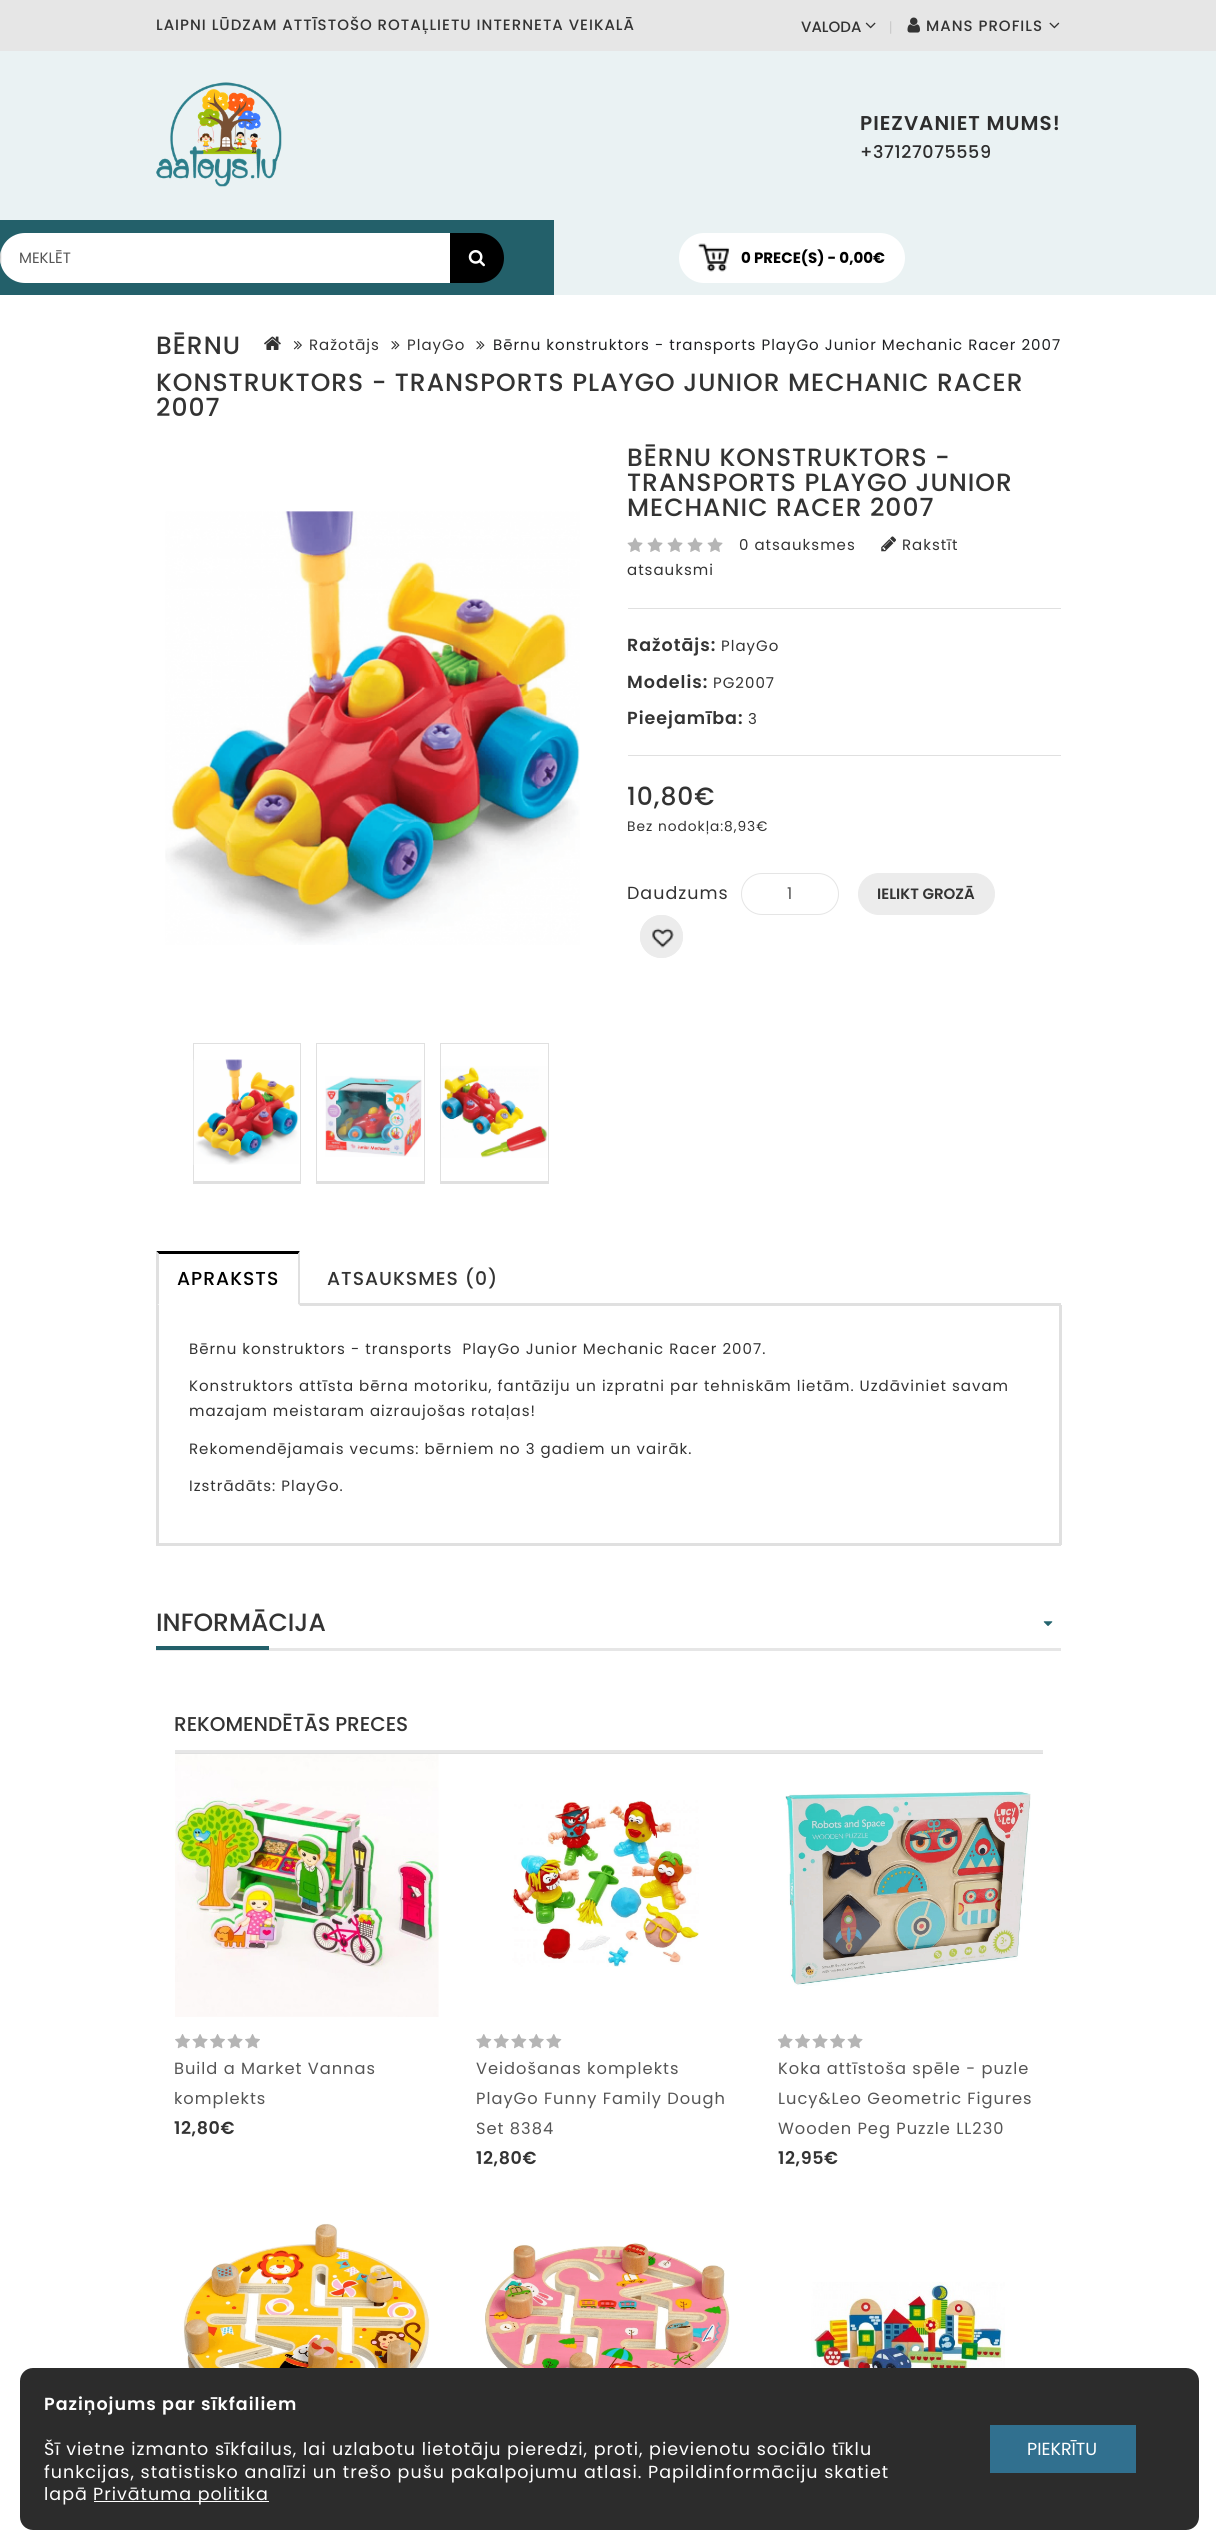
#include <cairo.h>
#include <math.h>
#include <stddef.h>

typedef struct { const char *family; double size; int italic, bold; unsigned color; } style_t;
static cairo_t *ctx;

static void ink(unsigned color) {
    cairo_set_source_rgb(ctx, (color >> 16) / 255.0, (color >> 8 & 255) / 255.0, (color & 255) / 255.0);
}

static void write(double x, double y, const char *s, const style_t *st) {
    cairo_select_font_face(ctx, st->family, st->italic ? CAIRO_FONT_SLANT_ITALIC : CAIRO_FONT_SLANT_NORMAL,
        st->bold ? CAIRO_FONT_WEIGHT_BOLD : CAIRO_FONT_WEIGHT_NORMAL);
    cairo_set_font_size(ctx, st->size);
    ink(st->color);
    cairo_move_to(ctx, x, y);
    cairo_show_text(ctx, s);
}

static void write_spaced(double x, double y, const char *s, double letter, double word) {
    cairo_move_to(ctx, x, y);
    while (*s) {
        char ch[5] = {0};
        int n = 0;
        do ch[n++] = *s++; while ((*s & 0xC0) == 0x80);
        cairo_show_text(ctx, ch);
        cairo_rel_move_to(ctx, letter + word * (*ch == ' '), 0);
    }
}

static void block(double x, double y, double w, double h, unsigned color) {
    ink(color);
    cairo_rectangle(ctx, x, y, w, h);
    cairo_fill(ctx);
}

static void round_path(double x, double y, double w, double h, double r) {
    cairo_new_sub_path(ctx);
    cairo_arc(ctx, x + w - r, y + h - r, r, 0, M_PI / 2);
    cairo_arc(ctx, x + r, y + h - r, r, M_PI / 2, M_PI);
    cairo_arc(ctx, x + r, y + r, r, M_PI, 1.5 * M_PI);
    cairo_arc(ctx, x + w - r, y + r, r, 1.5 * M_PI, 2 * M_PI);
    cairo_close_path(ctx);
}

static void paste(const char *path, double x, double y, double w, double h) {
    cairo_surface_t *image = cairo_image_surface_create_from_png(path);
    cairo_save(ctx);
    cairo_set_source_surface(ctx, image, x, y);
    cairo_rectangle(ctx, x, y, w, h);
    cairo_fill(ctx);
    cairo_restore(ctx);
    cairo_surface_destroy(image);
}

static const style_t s1 = {"Poppins Medium", 15, 0, 0, 0x333333};
static const style_t s2 = {"Poppins", 15, 0, 0, 0x555555};
static const style_t s3 = {"Poppins", 15, 0, 1, 0x000000};
static const style_t s4 = {"Poppins", 16.25, 0, 0, 0x555555};
static const style_t s5 = {"Poppins SemiBold", 15, 0, 0, 0x333333};
static const style_t s6 = {"Poppins Medium", 25, 0, 0, 0x333333};
static const style_t s7 = {"Poppins Medium", 20, 0, 0, 0x333333};
static const style_t s8 = {"Poppins", 17.5, 0, 0, 0xffffff};

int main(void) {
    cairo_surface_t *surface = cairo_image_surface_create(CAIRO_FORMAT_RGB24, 1216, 2530);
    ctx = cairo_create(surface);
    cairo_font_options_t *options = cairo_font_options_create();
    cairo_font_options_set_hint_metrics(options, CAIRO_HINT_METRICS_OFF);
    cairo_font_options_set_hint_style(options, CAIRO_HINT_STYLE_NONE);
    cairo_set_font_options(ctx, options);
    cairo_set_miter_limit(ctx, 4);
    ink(0xffffff);
    cairo_paint(ctx);
    block(0, 0, 1216, 51, 0xe6e6e6);
    cairo_select_font_face(ctx, "Poppins Medium", CAIRO_FONT_SLANT_NORMAL, CAIRO_FONT_WEIGHT_NORMAL);
    cairo_set_font_size(ctx, 15);
    ink(0x333333);
    write_spaced(156, 30, "LAIPNI LŪDZAM ATTĪSTOŠO ROTAĻLIETU INTERNETA VEIKALĀ", 1, 0);
    paste("pic1.png", 890, 21, 2, 13);
    write(801, 32, "VALODA", &s1);
    paste("pic2.png", 865, 22, 11, 7);
    paste("pic3.png", 907, 17, 13, 16);
    write_spaced(926, 31, "MANS PROFILS", 1, 0);
    paste("pic4.png", 1049, 22, 11, 7);
    block(0, 51, 1216, 244, 0xeaf2f3);
    paste("pic5.png", 156, 82, 126, 105);
    cairo_select_font_face(ctx, "Poppins SemiBold", CAIRO_FONT_SLANT_NORMAL, CAIRO_FONT_WEIGHT_NORMAL);
    cairo_set_font_size(ctx, 20);
    ink(0x2d2d2d);
    write_spaced(860, 130, "PIEZVANIET MUMS!", 1, 0);
    cairo_select_font_face(ctx, "Poppins Medium", CAIRO_FONT_SLANT_NORMAL, CAIRO_FONT_WEIGHT_NORMAL);
    cairo_set_font_size(ctx, 17.5);
    write_spaced(860, 158, "+37127075559", 0.6, 0);
    block(0, 220, 554, 75, 0x23606a);
    ink(0xffffff);
    cairo_new_path(ctx);
    cairo_move_to(ctx, 25, 233);
    cairo_line_to(ctx, 450, 233);
    cairo_line_to(ctx, 450, 283);
    cairo_line_to(ctx, 25, 283);
    cairo_curve_to(ctx, 11, 283, 0, 272, 0, 258);
    cairo_curve_to(ctx, 0, 244, 11, 233, 25, 233);
    cairo_close_path(ctx);
    cairo_fill(ctx);
    paste("pic6.png", 0, 248, 2, 17);
    write(19, 263, "MEKLĒT", &s2);
    ink(0x000000);
    cairo_new_path(ctx);
    cairo_move_to(ctx, 450, 233);
    cairo_line_to(ctx, 479, 233);
    cairo_curve_to(ctx, 493, 233, 504, 244, 504, 258);
    cairo_curve_to(ctx, 504, 272, 493, 283, 479, 283);
    cairo_line_to(ctx, 450, 283);
    cairo_close_path(ctx);
    cairo_fill(ctx);
    paste("pic7.png", 468, 250, 17, 17);
    ink(0xffffff);
    round_path(679, 233, 226, 50, 25);
    cairo_fill(ctx);
    paste("pic8.png", 698, 243, 32, 29);
    write(741, 263, "0 PRECE(S) - 0,00€", &s3);
    cairo_select_font_face(ctx, "Poppins Medium", CAIRO_FONT_SLANT_NORMAL, CAIRO_FONT_WEIGHT_NORMAL);
    cairo_set_font_size(ctx, 25);
    ink(0x333333);
    write_spaced(156, 354, "BĒRNU", 1, 0);
    write_spaced(156, 391, "KONSTRUKTORS - TRANSPORTS PLAYGO JUNIOR MECHANIC RACER", 1, 0);
    write_spaced(156, 416, "2007", 1, 0);
    paste("pic9.png", 264, 336, 17, 14);
    paste("pic10.png", 293, 341, 9, 9);
    cairo_select_font_face(ctx, "Poppins", CAIRO_FONT_SLANT_NORMAL, CAIRO_FONT_WEIGHT_NORMAL);
    cairo_set_font_size(ctx, 15);
    write_spaced(309, 350, "Ražotājs", 1, 0);
    paste("pic11.png", 391, 341, 9, 9);
    write_spaced(407, 350, "PlayGo", 1, 0);
    paste("pic11.png", 476, 341, 9, 9);
    ink(0x1f2022);
    write_spaced(493, 350, "Bērnu konstruktors - transports PlayGo Junior Mechanic Racer 2007", 1, 0);
    paste("pic12.png", 165, 511, 415, 434);
    block(193, 1043, 108, 1, 0xe0e0e0);
    block(300, 1043, 1, 141, 0xe0e0e0);
    block(193, 1181, 108, 3, 0xe0e0e0);
    block(193, 1043, 1, 141, 0xe0e0e0);
    paste("pic13.png", 193, 1059, 106, 106);
    block(316, 1043, 109, 1, 0xe0e0e0);
    block(424, 1043, 1, 141, 0xe0e0e0);
    block(316, 1181, 109, 3, 0xe0e0e0);
    block(316, 1043, 1, 141, 0xe0e0e0);
    paste("pic14.png", 325, 1076, 97, 81);
    block(440, 1043, 109, 1, 0xe0e0e0);
    block(548, 1043, 1, 141, 0xe0e0e0);
    block(440, 1181, 109, 3, 0xe0e0e0);
    block(440, 1043, 1, 141, 0xe0e0e0);
    paste("pic15.png", 441, 1066, 107, 92);
    cairo_select_font_face(ctx, "Poppins Medium", CAIRO_FONT_SLANT_NORMAL, CAIRO_FONT_WEIGHT_NORMAL);
    cairo_set_font_size(ctx, 25);
    ink(0x333333);
    write_spaced(627, 466, "BĒRNU KONSTRUKTORS -", 1, 0);
    write_spaced(627, 491, "TRANSPORTS PLAYGO JUNIOR", 1, 0);
    write_spaced(627, 516, "MECHANIC RACER 2007", 1, 0);
    paste("pic16.png", 627, 537, 16, 15);
    paste("pic16.png", 647, 537, 16, 15);
    paste("pic16.png", 667, 537, 16, 15);
    paste("pic16.png", 687, 537, 16, 15);
    paste("pic16.png", 707, 537, 16, 15);
    paste("pic17.png", 881, 536, 15, 16);
    cairo_select_font_face(ctx, "Poppins", CAIRO_FONT_SLANT_NORMAL, CAIRO_FONT_WEIGHT_NORMAL);
    cairo_set_font_size(ctx, 15);
    write_spaced(902, 550, "Rakstīt", 1, 0);
    write_spaced(627, 575, "atsauksmi", 1, 0);
    write_spaced(739, 550, "0 atsauksmes", 1, 0);
    block(628, 608, 433, 1, 0xe0e0e0);
    block(628, 755, 433, 1, 0xe0e0e0);
    cairo_select_font_face(ctx, "Poppins SemiBold", CAIRO_FONT_SLANT_NORMAL, CAIRO_FONT_WEIGHT_NORMAL);
    cairo_set_font_size(ctx, 17.5);
    ink(0x333333);
    write_spaced(627, 651, "Ražotājs:", 1, 0);
    cairo_select_font_face(ctx, "Poppins", CAIRO_FONT_SLANT_NORMAL, CAIRO_FONT_WEIGHT_NORMAL);
    cairo_set_font_size(ctx, 15);
    write_spaced(721, 651, "PlayGo", 1, 0);
    cairo_select_font_face(ctx, "Poppins SemiBold", CAIRO_FONT_SLANT_NORMAL, CAIRO_FONT_WEIGHT_NORMAL);
    cairo_set_font_size(ctx, 17.5);
    write_spaced(627, 688, "Modelis:", 1, 0);
    cairo_select_font_face(ctx, "Poppins", CAIRO_FONT_SLANT_NORMAL, CAIRO_FONT_WEIGHT_NORMAL);
    cairo_set_font_size(ctx, 15);
    write_spaced(713, 688, "PG2007", 1, 0);
    cairo_select_font_face(ctx, "Poppins SemiBold", CAIRO_FONT_SLANT_NORMAL, CAIRO_FONT_WEIGHT_NORMAL);
    cairo_set_font_size(ctx, 17.5);
    write_spaced(627, 724, "Pieejamība:", 1, 0);
    cairo_select_font_face(ctx, "Poppins", CAIRO_FONT_SLANT_NORMAL, CAIRO_FONT_WEIGHT_NORMAL);
    cairo_set_font_size(ctx, 15);
    write_spaced(748, 724, "3", 1, 0);
    cairo_select_font_face(ctx, "Poppins Medium", CAIRO_FONT_SLANT_NORMAL, CAIRO_FONT_WEIGHT_NORMAL);
    cairo_set_font_size(ctx, 25);
    write_spaced(627, 805, "10,80€", 1, 0);
    cairo_save(ctx);
    cairo_rectangle(ctx, 628, 781, 433, 73);
    cairo_clip(ctx);
    cairo_select_font_face(ctx, "Poppins", CAIRO_FONT_SLANT_NORMAL, CAIRO_FONT_WEIGHT_NORMAL);
    cairo_set_font_size(ctx, 13.75);
    write_spaced(627, 831, "Bez nodokļa:", 1, 0);
    cairo_restore(ctx);
    cairo_select_font_face(ctx, "Poppins", CAIRO_FONT_SLANT_NORMAL, CAIRO_FONT_WEIGHT_NORMAL);
    cairo_set_font_size(ctx, 13.75);
    write_spaced(724, 831, "8,93€", 1, 0);
    cairo_set_font_size(ctx, 17.5);
    write_spaced(627, 899, "Daudzums", 1, 0);
    round_path(741.5, 873.5, 97, 41, 20.5);
    ink(0xe5e5e5);
    cairo_set_line_width(ctx, 1);
    cairo_stroke(ctx);
    write(787, 899, "1", &s4);
    ink(0xececec);
    round_path(858.5, 873.5, 136, 41, 20.5);
    cairo_fill_preserve(ctx);
    cairo_stroke(ctx);
    write(877, 899, "IELIKT GROZĀ", &s5);
    ink(0xececec);
    cairo_new_path(ctx);
    cairo_arc(ctx, 661.5, 936.5, 21.5, 0, 2 * M_PI);
    cairo_fill(ctx);
    paste("pic18.png", 652, 928, 22, 20);
    cairo_arc(ctx, 661.5, 936.5, 21, 0, 2 * M_PI);
    cairo_stroke(ctx);
    block(300, 1303, 761, 3, 0xe0e0e0);
    ink(0x000000);
    cairo_new_path(ctx);
    cairo_move_to(ctx, 156, 1251);
    cairo_line_to(ctx, 300, 1251);
    cairo_line_to(ctx, 298, 1254);
    cairo_line_to(ctx, 159, 1254);
    cairo_close_path(ctx);
    cairo_fill(ctx);
    ink(0xe0e0e0);
    cairo_new_path(ctx);
    cairo_move_to(ctx, 300, 1251);
    cairo_line_to(ctx, 300, 1306);
    cairo_line_to(ctx, 298, 1304);
    cairo_line_to(ctx, 298, 1254);
    cairo_close_path(ctx);
    cairo_fill(ctx);
    ink(0xffffff);
    cairo_new_path(ctx);
    cairo_move_to(ctx, 300, 1306);
    cairo_line_to(ctx, 156, 1306);
    cairo_line_to(ctx, 159, 1304);
    cairo_line_to(ctx, 298, 1304);
    cairo_close_path(ctx);
    cairo_fill(ctx);
    ink(0xe0e0e0);
    cairo_new_path(ctx);
    cairo_move_to(ctx, 156, 1306);
    cairo_line_to(ctx, 156, 1251);
    cairo_line_to(ctx, 159, 1254);
    cairo_line_to(ctx, 159, 1304);
    cairo_close_path(ctx);
    cairo_fill(ctx);
    cairo_select_font_face(ctx, "Poppins Medium", CAIRO_FONT_SLANT_NORMAL, CAIRO_FONT_WEIGHT_NORMAL);
    cairo_set_font_size(ctx, 18.75);
    ink(0x000000);
    write_spaced(177, 1285, "APRAKSTS", 1, 0);
    ink(0x333333);
    write_spaced(327, 1285, "ATSAUKSMES (0)", 1, 0);
    block(1059, 1305, 3, 240, 0xe0e0e0);
    block(156, 1543, 905, 3, 0xe0e0e0);
    block(156, 1305, 3, 240, 0xe0e0e0);
    cairo_select_font_face(ctx, "Poppins", CAIRO_FONT_SLANT_NORMAL, CAIRO_FONT_WEIGHT_NORMAL);
    cairo_set_font_size(ctx, 15);
    ink(0x333333);
    write_spaced(189, 1354, "Bērnu konstruktors - transports  PlayGo Junior Mechanic Racer 2007.", 1, 0);
    write_spaced(189, 1391, "Konstruktors attīsta bērna motoriku, fantāziju un izpratni par tehniskām lietām. Uzdāviniet savam", 1, 0);
    write_spaced(189, 1416, "mazajam meistaram aizraujošas rotaļas!", 1, 0);
    write_spaced(189, 1454, "Rekomendējamais vecums: bērniem no 3 gadiem un vairāk.", 1, 0);
    write_spaced(189, 1491, "Izstrādāts: PlayGo.", 1, 0);
    block(156, 1648, 905, 3, 0xe6e6e6);
    write(156, 1631, "INFORMĀCIJA", &s6);
    paste("pic19.png", 1043, 1621, 10, 5);
    block(156, 1646, 113, 4, 0x23606a);
    block(175, 1753, 868, 1, 0xdfdfdf);
    block(175, 1750, 868, 3, 0xe6e6e6);
    write(174, 1731, "REKOMENDĒTĀS PRECES", &s7);
    paste("pic20.png", 175, 1754, 264, 263);
    paste("pic21.png", 175, 2034, 15, 15);
    paste("pic22.png", 192, 2034, 16, 15);
    paste("pic21.png", 210, 2034, 15, 15);
    paste("pic22.png", 227, 2034, 16, 15);
    paste("pic21.png", 245, 2034, 15, 15);
    cairo_select_font_face(ctx, "Poppins", CAIRO_FONT_SLANT_NORMAL, CAIRO_FONT_WEIGHT_NORMAL);
    cairo_set_font_size(ctx, 16.25);
    ink(0x555555);
    write_spaced(174, 2074, "Build a Market Vannas", 1, 0);
    write_spaced(174, 2104, "komplekts", 1, 0);
    cairo_select_font_face(ctx, "Poppins SemiBold", CAIRO_FONT_SLANT_NORMAL, CAIRO_FONT_WEIGHT_NORMAL);
    cairo_set_font_size(ctx, 17.5);
    ink(0x333333);
    write_spaced(174, 2134, "12,80€", 0.6, 0);
    paste("pic23.png", 512, 1800, 187, 167);
    paste("pic24.png", 476, 2034, 16, 15);
    paste("pic25.png", 493, 2034, 16, 15);
    paste("pic24.png", 511, 2034, 16, 15);
    paste("pic25.png", 528, 2034, 16, 15);
    paste("pic24.png", 546, 2034, 16, 15);
    cairo_select_font_face(ctx, "Poppins", CAIRO_FONT_SLANT_NORMAL, CAIRO_FONT_WEIGHT_NORMAL);
    cairo_set_font_size(ctx, 16.25);
    ink(0x555555);
    write_spaced(476, 2074, "Veidošanas komplekts", 1, 0);
    write_spaced(476, 2104, "PlayGo Funny Family Dough", 1, 0);
    write_spaced(476, 2134, "Set 8384", 1, 0);
    cairo_select_font_face(ctx, "Poppins SemiBold", CAIRO_FONT_SLANT_NORMAL, CAIRO_FONT_WEIGHT_NORMAL);
    cairo_set_font_size(ctx, 17.5);
    ink(0x333333);
    write_spaced(476, 2164, "12,80€", 0.6, 0);
    paste("pic26.png", 785, 1791, 246, 195);
    paste("pic27.png", 778, 2034, 15, 15);
    paste("pic21.png", 795, 2034, 15, 15);
    paste("pic22.png", 812, 2034, 16, 15);
    paste("pic21.png", 830, 2034, 15, 15);
    paste("pic22.png", 847, 2034, 16, 15);
    cairo_select_font_face(ctx, "Poppins", CAIRO_FONT_SLANT_NORMAL, CAIRO_FONT_WEIGHT_NORMAL);
    cairo_set_font_size(ctx, 16.25);
    ink(0x555555);
    write_spaced(778, 2074, "Koka attīstoša spēle - puzle", 1, 0);
    write_spaced(778, 2104, "Lucy&Leo Geometric Figures", 1, 0);
    write_spaced(778, 2134, "Wooden Peg Puzzle LL230", 1, 0);
    cairo_select_font_face(ctx, "Poppins SemiBold", CAIRO_FONT_SLANT_NORMAL, CAIRO_FONT_WEIGHT_NORMAL);
    cairo_set_font_size(ctx, 17.5);
    ink(0x333333);
    write_spaced(778, 2164, "12,95€", 0.6, 0);
    paste("pic28.png", 175, 2223, 255, 145);
    paste("pic29.png", 485, 2242, 245, 126);
    paste("pic30.png", 811, 2282, 194, 86);
    ink(0x2c2c2c);
    round_path(20, 2368, 1179, 162, 13);
    cairo_fill(ctx);
    ink(0xffffff);
    write_spaced(44, 2410, "Paziņojums par sīkfailiem", 1, 0);
    cairo_select_font_face(ctx, "Poppins", CAIRO_FONT_SLANT_NORMAL, CAIRO_FONT_WEIGHT_NORMAL);
    write_spaced(44, 2455, "Šī vietne izmanto sīkfailus, lai uzlabotu lietotāju pieredzi, proti, pievienotu sociālo tīklu", 1, 0);
    write_spaced(44, 2478, "funkcijas, statistisko analīzi un trešo pušu pakalpojumu atlasi. Papildinformāciju skatiet", 1, 0);
    write_spaced(44, 2500, "lapā", 1, 0);
    block(94, 2501, 175, 1, 0xffffff);
    write_spaced(93, 2500, "Privātuma politika", 1, 0);
    block(990, 2425, 146, 48, 0x31708f);
    write(1027, 2455, "PIEKRĪTU", &s8);
    cairo_surface_write_to_png(surface, "screenshot.png");
    cairo_font_options_destroy(options);
    cairo_destroy(ctx);
    cairo_surface_destroy(surface);
    return 0;
}
